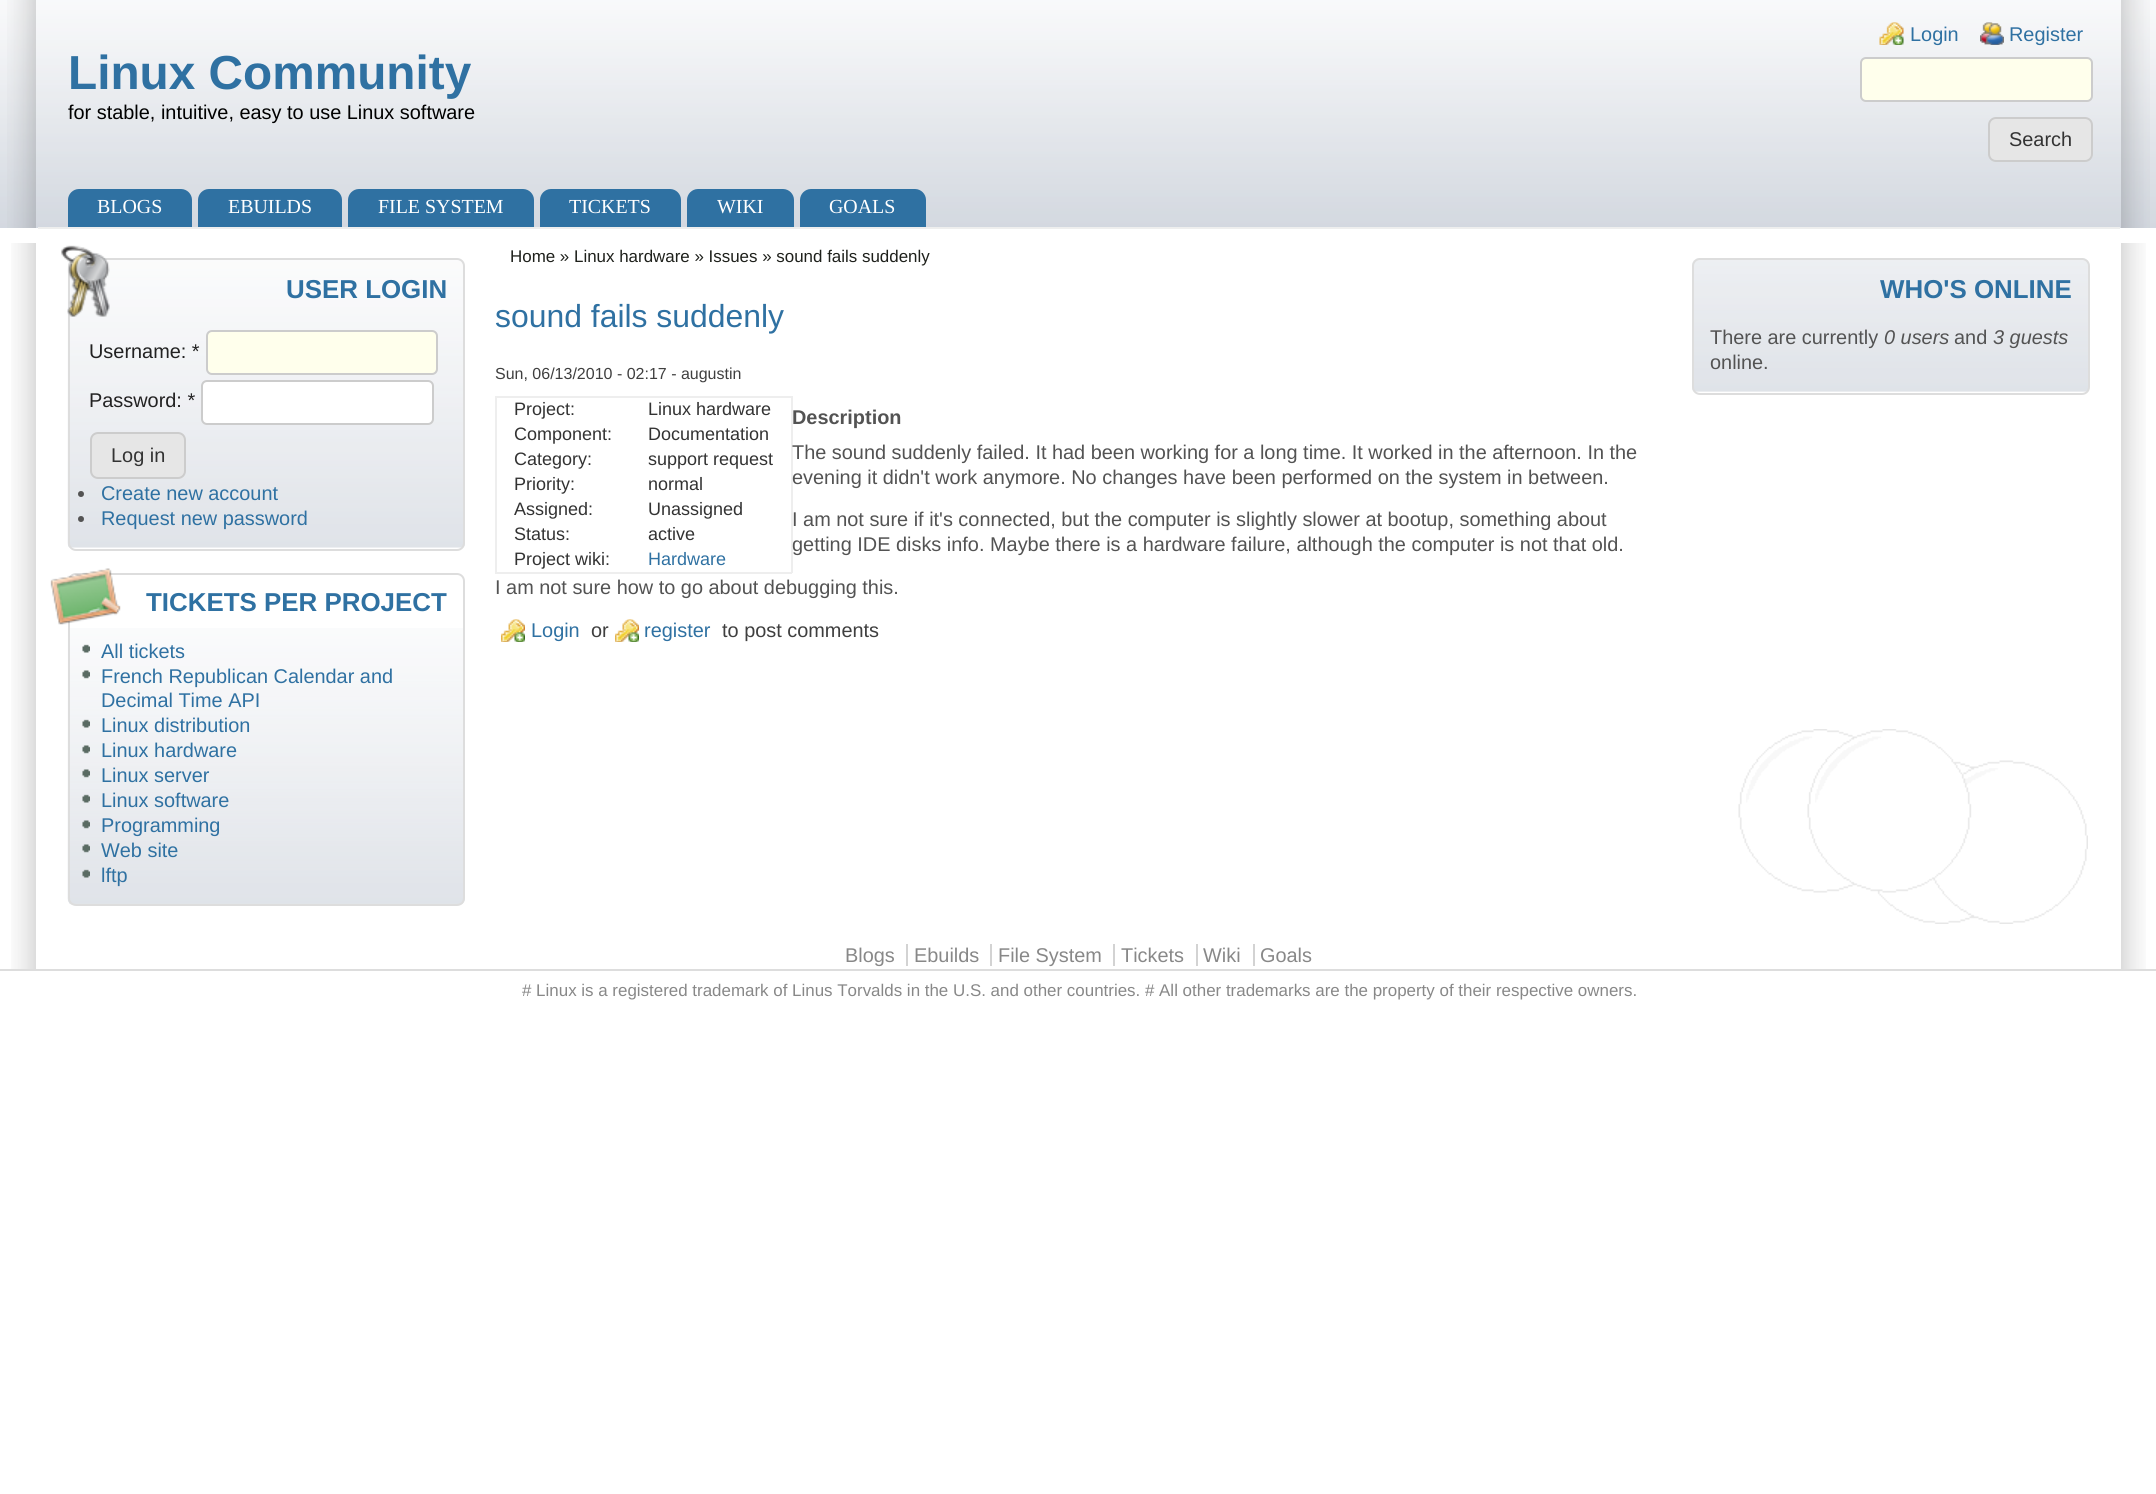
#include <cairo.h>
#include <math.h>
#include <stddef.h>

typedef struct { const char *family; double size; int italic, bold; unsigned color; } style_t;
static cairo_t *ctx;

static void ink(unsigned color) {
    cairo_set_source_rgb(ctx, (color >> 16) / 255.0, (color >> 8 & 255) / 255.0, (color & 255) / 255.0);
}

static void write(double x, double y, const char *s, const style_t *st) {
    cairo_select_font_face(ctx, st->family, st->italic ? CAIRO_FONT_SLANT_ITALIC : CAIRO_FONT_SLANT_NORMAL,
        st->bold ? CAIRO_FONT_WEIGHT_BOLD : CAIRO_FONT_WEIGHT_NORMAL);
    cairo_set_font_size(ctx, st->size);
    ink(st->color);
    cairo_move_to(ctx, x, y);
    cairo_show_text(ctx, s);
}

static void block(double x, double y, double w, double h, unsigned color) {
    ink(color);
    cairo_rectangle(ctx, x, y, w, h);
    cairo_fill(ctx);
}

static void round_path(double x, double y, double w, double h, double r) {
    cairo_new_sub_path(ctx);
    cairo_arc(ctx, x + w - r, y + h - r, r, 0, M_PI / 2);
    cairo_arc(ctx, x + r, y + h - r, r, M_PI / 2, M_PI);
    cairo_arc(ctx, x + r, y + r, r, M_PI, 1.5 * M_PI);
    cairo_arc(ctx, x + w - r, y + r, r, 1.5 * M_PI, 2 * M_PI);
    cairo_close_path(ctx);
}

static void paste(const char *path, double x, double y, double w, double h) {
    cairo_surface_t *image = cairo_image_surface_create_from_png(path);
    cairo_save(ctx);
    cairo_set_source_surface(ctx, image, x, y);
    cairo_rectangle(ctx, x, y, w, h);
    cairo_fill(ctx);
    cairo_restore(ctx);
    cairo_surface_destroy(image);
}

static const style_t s1 = {"Liberation Sans", 47.75, 0, 1, 0x2f71a2};
static const style_t s2 = {"Liberation Sans", 19.9, 0, 0, 0x000000};
static const style_t s3 = {"Liberation Sans", 19.9, 0, 0, 0x2f71a2};
static const style_t s4 = {"Liberation Sans", 19.9, 0, 0, 0x333333};
static const style_t s5 = {"Liberation Serif", 19.9, 0, 0, 0xffffff};
static const style_t s6 = {"Liberation Sans", 25.9, 0, 1, 0x2f71a2};
static const style_t s7 = {"Liberation Sans", 19.9, 0, 0, 0x222222};
static const style_t s8 = {"Liberation Sans", 16.93, 0, 0, 0x1e201b};
static const style_t s9 = {"Liberation Sans", 31.9, 0, 0, 0x2f71a2};
static const style_t s10 = {"Liberation Sans", 16, 0, 0, 0x3f3f3f};
static const style_t s11 = {"Liberation Sans", 18, 0, 0, 0x333333};
static const style_t s12 = {"Liberation Sans", 18, 0, 0, 0x2f71a2};
static const style_t s13 = {"Liberation Sans", 19.9, 0, 1, 0x535353};
static const style_t s14 = {"Liberation Sans", 19.9, 0, 0, 0x535353};
static const style_t s15 = {"Liberation Sans", 19.9, 0, 0, 0x3f3f3f};
static const style_t s16 = {"Liberation Sans", 19.9, 1, 0, 0x535353};
static const style_t s17 = {"Liberation Sans", 19.9, 0, 0, 0x888888};
static const style_t s18 = {"Liberation Sans", 16.93, 0, 0, 0x888888};

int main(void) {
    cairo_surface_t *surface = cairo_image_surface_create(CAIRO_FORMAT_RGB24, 2156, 1494);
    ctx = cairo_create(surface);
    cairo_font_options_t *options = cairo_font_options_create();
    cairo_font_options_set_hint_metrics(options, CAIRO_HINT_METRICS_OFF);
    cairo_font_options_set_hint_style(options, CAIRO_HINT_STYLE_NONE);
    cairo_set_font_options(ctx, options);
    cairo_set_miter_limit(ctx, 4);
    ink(0xffffff);
    cairo_paint(ctx);
    paste("pic1.png", 0, 0, 2156, 228);
    paste("pic2.png", 7, 0, 29, 228);
    paste("pic3.png", 2121, 0, 29, 228);
    block(38, 227, 2082, 2, 0xeeeeee);
    write(68, 89, "Linux Community", &s1);
    write(68, 119, "for stable, intuitive, easy to use Linux software", &s2);
    paste("pic4.png", 1879, 22, 25, 23);
    write(1910, 41, "Login", &s3);
    paste("pic5.png", 1980, 22, 24, 23);
    write(2009, 41, "Register", &s3);
    ink(0xffffec);
    round_path(1861, 58, 231, 43, 5);
    cairo_fill_preserve(ctx);
    ink(0xcccccc);
    cairo_stroke(ctx);
    ink(0xe6e6e6);
    round_path(1989, 118, 103, 43, 7);
    cairo_fill_preserve(ctx);
    ink(0xcccccc);
    cairo_stroke(ctx);
    write(2009, 146, "Search", &s4);
    ink(0x2f71a2);
    cairo_new_path(ctx);
    cairo_move_to(ctx, 79, 189);
    cairo_line_to(ctx, 181, 189);
    cairo_curve_to(ctx, 187, 189, 192, 194, 192, 200);
    cairo_line_to(ctx, 192, 227);
    cairo_line_to(ctx, 68, 227);
    cairo_line_to(ctx, 68, 200);
    cairo_curve_to(ctx, 68, 194, 73, 189, 79, 189);
    cairo_close_path(ctx);
    cairo_fill(ctx);
    write(97, 213, "BLOGS", &s5);
    ink(0x2f71a2);
    cairo_new_path(ctx);
    cairo_move_to(ctx, 209, 189);
    cairo_line_to(ctx, 331, 189);
    cairo_curve_to(ctx, 337, 189, 342, 194, 342, 200);
    cairo_line_to(ctx, 342, 227);
    cairo_line_to(ctx, 198, 227);
    cairo_line_to(ctx, 198, 200);
    cairo_curve_to(ctx, 198, 194, 203, 189, 209, 189);
    cairo_close_path(ctx);
    cairo_fill(ctx);
    write(228, 213, "EBUILDS", &s5);
    ink(0x2f71a2);
    cairo_new_path(ctx);
    cairo_move_to(ctx, 359, 189);
    cairo_line_to(ctx, 523, 189);
    cairo_curve_to(ctx, 529, 189, 534, 194, 534, 200);
    cairo_line_to(ctx, 534, 227);
    cairo_line_to(ctx, 348, 227);
    cairo_line_to(ctx, 348, 200);
    cairo_curve_to(ctx, 348, 194, 353, 189, 359, 189);
    cairo_close_path(ctx);
    cairo_fill(ctx);
    write(378, 213, "FILE SYSTEM", &s5);
    ink(0x2f71a2);
    cairo_new_path(ctx);
    cairo_move_to(ctx, 551, 189);
    cairo_line_to(ctx, 670, 189);
    cairo_curve_to(ctx, 676, 189, 681, 194, 681, 200);
    cairo_line_to(ctx, 681, 227);
    cairo_line_to(ctx, 540, 227);
    cairo_line_to(ctx, 540, 200);
    cairo_curve_to(ctx, 540, 194, 545, 189, 551, 189);
    cairo_close_path(ctx);
    cairo_fill(ctx);
    write(569, 213, "TICKETS", &s5);
    ink(0x2f71a2);
    cairo_new_path(ctx);
    cairo_move_to(ctx, 698, 189);
    cairo_line_to(ctx, 783, 189);
    cairo_curve_to(ctx, 789, 189, 794, 194, 794, 200);
    cairo_line_to(ctx, 794, 227);
    cairo_line_to(ctx, 687, 227);
    cairo_line_to(ctx, 687, 200);
    cairo_curve_to(ctx, 687, 194, 692, 189, 698, 189);
    cairo_close_path(ctx);
    cairo_fill(ctx);
    write(717, 213, "WIKI", &s5);
    ink(0x2f71a2);
    cairo_new_path(ctx);
    cairo_move_to(ctx, 811, 189);
    cairo_line_to(ctx, 915, 189);
    cairo_curve_to(ctx, 921, 189, 926, 194, 926, 200);
    cairo_line_to(ctx, 926, 227);
    cairo_line_to(ctx, 800, 227);
    cairo_line_to(ctx, 800, 200);
    cairo_curve_to(ctx, 800, 194, 805, 189, 811, 189);
    cairo_close_path(ctx);
    cairo_fill(ctx);
    write(829, 213, "GOALS", &s5);
    block(0, 969, 2156, 2, 0xdddddd);
    paste("pic6.png", 11, 243, 25, 726);
    paste("pic7.png", 2121, 243, 25, 726);
    paste("pic8.png", 1738, 729, 350, 195);
    paste("pic9.png", 67, 258, 398, 290);
    round_path(69, 259, 395, 291, 7);
    cairo_stroke(ctx);
    paste("pic10.png", 61, 245, 49, 72);
    write(286, 298, "USER LOGIN", &s6);
    write(89, 358, "Username: *", &s7);
    ink(0xffffec);
    round_path(207, 331, 230, 43, 5);
    cairo_fill_preserve(ctx);
    ink(0xcccccc);
    cairo_stroke(ctx);
    write(89, 407, "Password: *", &s7);
    ink(0xffffff);
    round_path(202, 381, 231, 43, 5);
    cairo_fill_preserve(ctx);
    ink(0xcccccc);
    cairo_stroke(ctx);
    ink(0xe6e6e6);
    round_path(91, 433, 94, 45, 7);
    cairo_fill_preserve(ctx);
    ink(0xcccccc);
    cairo_stroke(ctx);
    write(111, 462, "Log in", &s4);
    ink(0x535353);
    cairo_new_path(ctx);
    cairo_arc(ctx, 81, 494, 3, 0, 2 * M_PI);
    cairo_fill(ctx);
    write(101, 500, "Create new account", &s3);
    ink(0x535353);
    cairo_new_path(ctx);
    cairo_arc(ctx, 81, 519, 3, 0, 2 * M_PI);
    cairo_fill(ctx);
    write(101, 525, "Request new password", &s3);
    paste("pic11.png", 67, 628, 398, 277);
    round_path(69, 574, 395, 331, 7);
    ink(0xdddddd);
    cairo_stroke(ctx);
    paste("pic12.png", 50, 568, 71, 57);
    write(146, 611, "TICKETS PER PROJECT", &s6);
    paste("pic13.png", 82, 644, 8, 9);
    write(101, 658, "All tickets", &s3);
    paste("pic14.png", 82, 670, 8, 9);
    write(101, 683, "French Republican Calendar and", &s3);
    write(101, 707, "Decimal Time API", &s3);
    paste("pic15.png", 82, 719, 8, 9);
    write(101, 732, "Linux distribution", &s3);
    paste("pic16.png", 82, 745, 8, 9);
    write(101, 757, "Linux hardware", &s3);
    paste("pic17.png", 82, 769, 8, 9);
    write(101, 782, "Linux server", &s3);
    paste("pic18.png", 82, 794, 8, 9);
    write(101, 807, "Linux software", &s3);
    paste("pic19.png", 82, 820, 8, 9);
    write(101, 832, "Programming", &s3);
    paste("pic20.png", 82, 844, 8, 9);
    write(101, 857, "Web site", &s3);
    paste("pic21.png", 82, 869, 8, 9);
    write(101, 882, "lftp", &s3);
    write(510, 262, "Home » Linux hardware » Issues » sound fails suddenly", &s8);
    write(495, 327, "sound fails suddenly", &s9);
    write(495, 379, "Sun, 06/13/2010 - 02:17 - augustin", &s10);
    block(495, 396, 297, 2, 0xeeeeee);
    block(791, 396, 2, 177, 0xeeeeee);
    block(495, 572, 297, 2, 0xeeeeee);
    block(495, 396, 2, 177, 0xeeeeee);
    write(514, 415, "Project:", &s11);
    write(648, 415, "Linux hardware", &s11);
    write(514, 440, "Component:", &s11);
    write(648, 440, "Documentation", &s11);
    write(514, 465, "Category:", &s11);
    write(648, 465, "support request", &s11);
    write(514, 490, "Priority:", &s11);
    write(648, 490, "normal", &s11);
    write(514, 515, "Assigned:", &s11);
    write(648, 515, "Unassigned", &s11);
    write(514, 540, "Status:", &s11);
    write(648, 540, "active", &s11);
    write(514, 565, "Project wiki:", &s11);
    write(648, 565, "Hardware", &s12);
    write(792, 424, "Description", &s13);
    write(792, 459, "The sound suddenly failed. It had been working for a long time. It worked in the afternoon. In the", &s14);
    write(792, 484, "evening it didn't work anymore. No changes have been performed on the system in between.", &s14);
    write(792, 526, "I am not sure if it's connected, but the computer is slightly slower at bootup, something about", &s14);
    write(792, 551, "getting IDE disks info. Maybe there is a hardware failure, although the computer is not that old.", &s14);
    write(495, 594, "I am not sure how to go about debugging this.", &s14);
    paste("pic22.png", 501, 619, 24, 23);
    write(531, 637, "Login", &s3);
    write(591, 637, "or", &s15);
    paste("pic23.png", 615, 619, 24, 23);
    write(644, 637, "register", &s3);
    write(722, 637, "to post comments", &s15);
    paste("pic24.png", 1692, 258, 398, 134);
    round_path(1693, 259, 396, 135, 7);
    ink(0xdddddd);
    cairo_stroke(ctx);
    write(1880, 298, "WHO'S ONLINE", &s6);
    write(1710, 344, "There are currently", &s14);
    write(1884, 344, "0 users", &s16);
    write(1954, 344, "and", &s14);
    write(1993, 344, "3 guests", &s16);
    write(1710, 369, "online.", &s14);
    write(845, 962, "Blogs", &s17);
    write(914, 962, "Ebuilds", &s17);
    block(906, 944, 2, 22, 0xd3d3d3);
    write(998, 962, "File System", &s17);
    block(990, 944, 2, 22, 0xd3d3d3);
    write(1121, 962, "Tickets", &s17);
    block(1113, 944, 2, 22, 0xd3d3d3);
    write(1203, 962, "Wiki", &s17);
    block(1196, 944, 2, 22, 0xd3d3d3);
    write(1260, 962, "Goals", &s17);
    block(1253, 944, 2, 22, 0xd3d3d3);
    write(522, 996, "# Linux is a registered trademark of Linus Torvalds in the U.S. and other countries. # All other trademarks are the property of their respective owners.", &s18);
    cairo_surface_write_to_png(surface, "screenshot.png");
    cairo_font_options_destroy(options);
    cairo_destroy(ctx);
    cairo_surface_destroy(surface);
    return 0;
}
